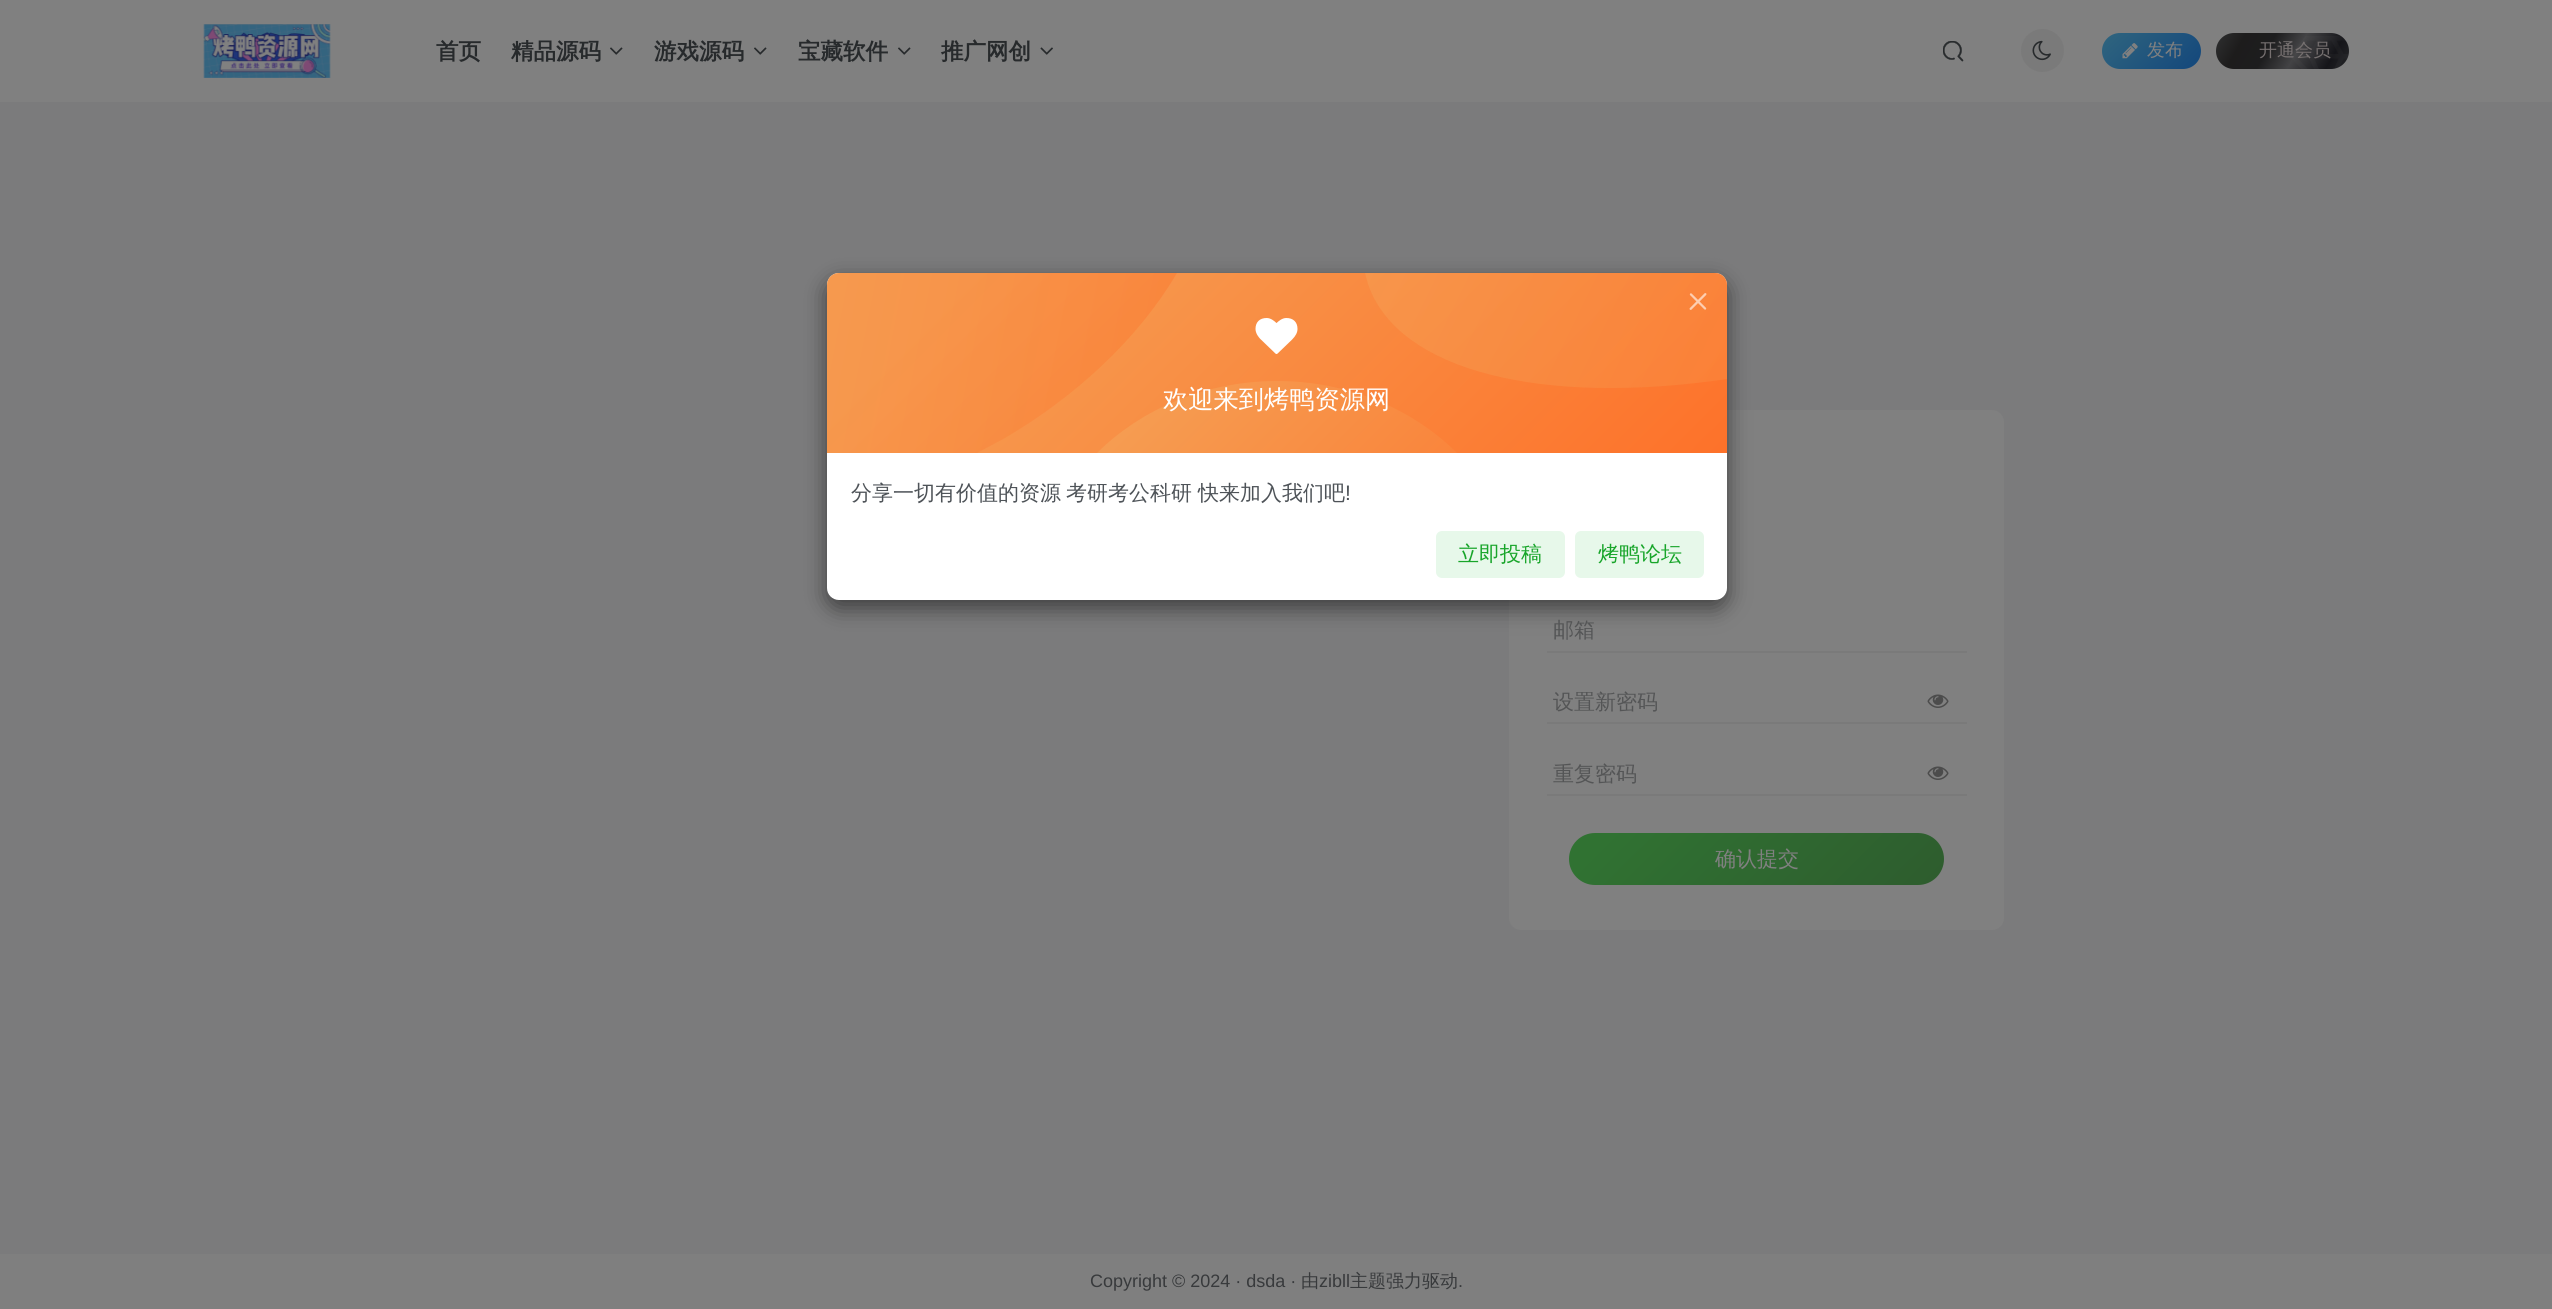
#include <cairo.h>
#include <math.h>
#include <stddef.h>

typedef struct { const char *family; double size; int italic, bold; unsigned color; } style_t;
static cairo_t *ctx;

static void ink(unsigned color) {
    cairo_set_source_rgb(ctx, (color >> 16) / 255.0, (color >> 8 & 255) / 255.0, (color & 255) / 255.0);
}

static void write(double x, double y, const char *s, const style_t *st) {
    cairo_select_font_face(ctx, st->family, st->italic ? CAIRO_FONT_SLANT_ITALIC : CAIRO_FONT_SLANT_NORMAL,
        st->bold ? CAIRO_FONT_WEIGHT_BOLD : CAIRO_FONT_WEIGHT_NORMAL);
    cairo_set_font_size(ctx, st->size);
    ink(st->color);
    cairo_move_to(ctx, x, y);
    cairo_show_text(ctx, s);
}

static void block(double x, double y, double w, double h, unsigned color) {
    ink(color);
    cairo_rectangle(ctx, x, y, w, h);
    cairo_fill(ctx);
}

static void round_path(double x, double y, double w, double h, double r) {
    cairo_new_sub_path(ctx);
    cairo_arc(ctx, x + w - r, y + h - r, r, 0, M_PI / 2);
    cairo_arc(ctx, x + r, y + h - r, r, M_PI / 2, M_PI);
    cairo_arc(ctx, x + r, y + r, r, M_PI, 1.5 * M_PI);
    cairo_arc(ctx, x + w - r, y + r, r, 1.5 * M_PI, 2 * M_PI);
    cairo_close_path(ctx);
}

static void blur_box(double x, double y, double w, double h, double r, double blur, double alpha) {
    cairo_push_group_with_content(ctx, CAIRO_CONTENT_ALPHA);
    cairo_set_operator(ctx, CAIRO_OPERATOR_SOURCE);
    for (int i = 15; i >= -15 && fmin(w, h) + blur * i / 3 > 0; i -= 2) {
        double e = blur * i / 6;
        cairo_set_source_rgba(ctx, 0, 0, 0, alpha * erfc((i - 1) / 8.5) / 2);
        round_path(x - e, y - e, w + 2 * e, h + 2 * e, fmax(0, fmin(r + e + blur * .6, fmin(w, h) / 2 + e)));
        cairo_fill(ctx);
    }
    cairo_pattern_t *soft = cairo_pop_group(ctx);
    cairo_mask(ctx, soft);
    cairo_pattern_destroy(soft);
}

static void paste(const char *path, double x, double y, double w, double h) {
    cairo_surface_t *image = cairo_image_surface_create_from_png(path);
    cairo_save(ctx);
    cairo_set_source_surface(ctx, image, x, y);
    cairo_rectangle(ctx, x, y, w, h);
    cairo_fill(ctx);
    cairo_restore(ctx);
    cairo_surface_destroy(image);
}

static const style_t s1 = {"WenQuanYi Zen Hei", 22.5, 0, 1, 0x272a2c};
static const style_t s2 = {"WenQuanYi Zen Hei Medium", 18, 0, 0, 0x808080};
static const style_t s3 = {"WenQuanYi Zen Hei Medium", 18, 0, 0, 0x767070};
static const style_t s4 = {"WenQuanYi Zen Hei Medium", 25.25, 0, 0, 0xffffff};
static const style_t s5 = {"WenQuanYi Zen Hei Medium", 21, 0, 0, 0x4e5358};
static const style_t s6 = {"Liberation Sans", 21, 0, 0, 0x4e5358};
static const style_t s7 = {"WenQuanYi Zen Hei Medium", 21, 0, 0, 0x18a52a};
static const style_t s8 = {"WenQuanYi Zen Hei Medium", 21, 0, 0, 0x545556};
static const style_t s9 = {"WenQuanYi Zen Hei Medium", 21, 0, 0, 0x808080};
static const style_t s10 = {"Liberation Sans", 18, 0, 0, 0x383a3c};
static const style_t s11 = {"WenQuanYi Zen Hei Medium", 18, 0, 0, 0x383a3c};

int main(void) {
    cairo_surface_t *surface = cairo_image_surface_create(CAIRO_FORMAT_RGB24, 2552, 1309);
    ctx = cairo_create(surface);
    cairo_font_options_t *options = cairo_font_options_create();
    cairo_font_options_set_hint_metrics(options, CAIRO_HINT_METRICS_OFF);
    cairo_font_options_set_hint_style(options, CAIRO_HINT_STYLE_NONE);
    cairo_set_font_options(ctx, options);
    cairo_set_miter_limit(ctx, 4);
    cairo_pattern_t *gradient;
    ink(0x7b7b7c);
    cairo_paint(ctx);
    block(0, 0, 2552, 102, 0x808080);
    paste("pic1.png", 203, 24, 128, 54);
    write(436, 59, "首页", &s1);
    write(511, 59, "精品源码", &s1);
    paste("pic2.png", 610, 47, 13, 8);
    write(654, 59, "游戏源码", &s1);
    paste("pic2.png", 754, 47, 13, 8);
    write(798, 59, "宝藏软件", &s1);
    paste("pic2.png", 898, 47, 13, 8);
    write(941, 59, "推广网创", &s1);
    paste("pic3.png", 1040, 47, 13, 8);
    paste("pic4.png", 1943, 41, 21, 21);
    ink(0x7a7a7a);
    cairo_arc(ctx, 2042.5, 50.5, 21.5, 0, 2 * M_PI);
    cairo_fill(ctx);
    paste("pic5.png", 2032, 40, 19, 21);
    gradient = cairo_pattern_create_linear(2117, 17, 2185, 85);
    cairo_pattern_add_color_stop_rgba(gradient, 0.1, 0.176, 0.384, 0.494, 1);
    cairo_pattern_add_color_stop_rgba(gradient, 1, 0.075, 0.278, 0.486, 1);
    cairo_set_source(ctx, gradient);
    cairo_pattern_destroy(gradient);
    round_path(2102, 33, 99, 36, 18);
    cairo_fill(ctx);
    paste("pic6.png", 2122, 43, 16, 16);
    write(2147, 56, "发布", &s2);
    gradient = cairo_pattern_create_linear(2340, 84, 2224, 18);
    cairo_pattern_add_color_stop_rgba(gradient, 0, 0.149, 0.153, 0.161, 1);
    cairo_pattern_add_color_stop_rgba(gradient, 0.15, 0.082, 0.082, 0.098, 1);
    cairo_pattern_add_color_stop_rgba(gradient, 0.4, 0.263, 0.263, 0.271, 1);
    cairo_pattern_add_color_stop_rgba(gradient, 0.6, 0.114, 0.114, 0.118, 1);
    cairo_pattern_add_color_stop_rgba(gradient, 0.8, 0.114, 0.11, 0.11, 1);
    cairo_pattern_add_color_stop_rgba(gradient, 1, 0.184, 0.188, 0.192, 1);
    cairo_set_source(ctx, gradient);
    cairo_pattern_destroy(gradient);
    round_path(2216, 33, 133, 36, 18);
    cairo_fill(ctx);
    write(2259, 56, "开通会员", &s3);
    paste("pic7.png", 2291, 36, 58, 33);
    ink(0x808080);
    round_path(1509, 410, 495, 520, 12);
    cairo_fill(ctx);
    ink(0x000000);
    blur_box(827, 281, 900, 327, 12, 11, 0.5);
    ink(0xffffff);
    round_path(827, 273, 900, 327, 12);
    cairo_fill(ctx);
    gradient = cairo_pattern_create_linear(1052, 48, 1682, 678);
    cairo_pattern_add_color_stop_rgba(gradient, 0.1, 0.961, 0.624, 0.329, 1);
    cairo_pattern_add_color_stop_rgba(gradient, 1, 1, 0.412, 0.133, 1);
    cairo_set_source(ctx, gradient);
    cairo_pattern_destroy(gradient);
    cairo_new_path(ctx);
    cairo_move_to(ctx, 839, 273);
    cairo_line_to(ctx, 1715, 273);
    cairo_curve_to(ctx, 1721.5, 273, 1727, 278.5, 1727, 285);
    cairo_line_to(ctx, 1727, 453);
    cairo_line_to(ctx, 827, 453);
    cairo_line_to(ctx, 827, 285);
    cairo_curve_to(ctx, 827, 278.5, 832.5, 273, 839, 273);
    cairo_close_path(ctx);
    cairo_fill(ctx);
    gradient = cairo_pattern_create_linear(1047, 369, 1507, 828);
    cairo_pattern_add_color_stop_rgba(gradient, 0.1, 0.961, 0.624, 0.329, 1);
    cairo_pattern_add_color_stop_rgba(gradient, 1, 1, 0.412, 0.133, 1);
    cairo_set_source(ctx, gradient);
    cairo_pattern_destroy(gradient);
    cairo_new_path(ctx);
    cairo_move_to(ctx, 1277, 381);
    cairo_curve_to(ctx, 1348, 381, 1413, 409, 1457, 453);
    cairo_line_to(ctx, 1097, 453);
    cairo_curve_to(ctx, 1141, 409, 1206, 381, 1277, 381);
    cairo_close_path(ctx);
    cairo_fill(ctx);
    gradient = cairo_pattern_create_linear(622, 224, 1263, 349);
    cairo_pattern_add_color_stop_rgba(gradient, 0.1, 0.961, 0.624, 0.329, 0.4);
    cairo_pattern_add_color_stop_rgba(gradient, 1, 1, 0.412, 0.133, 0.4);
    cairo_set_source(ctx, gradient);
    cairo_pattern_destroy(gradient);
    cairo_new_path(ctx);
    cairo_move_to(ctx, 839, 273);
    cairo_line_to(ctx, 1177, 273);
    cairo_curve_to(ctx, 1137, 341, 1073, 398, 1005, 438);
    cairo_line_to(ctx, 977, 453);
    cairo_line_to(ctx, 827, 453);
    cairo_line_to(ctx, 827, 285);
    cairo_curve_to(ctx, 827, 278, 832, 273, 839, 273);
    cairo_close_path(ctx);
    cairo_fill(ctx);
    gradient = cairo_pattern_create_linear(1382, -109, 2314, 346);
    cairo_pattern_add_color_stop_rgba(gradient, 0.1, 0.961, 0.624, 0.329, 0.6);
    cairo_pattern_add_color_stop_rgba(gradient, 1, 1, 0.412, 0.133, 0.6);
    cairo_set_source(ctx, gradient);
    cairo_pattern_destroy(gradient);
    cairo_new_path(ctx);
    cairo_move_to(ctx, 1727, 379);
    cairo_curve_to(ctx, 1544, 406, 1398, 372, 1368, 284);
    cairo_line_to(ctx, 1365, 273);
    cairo_line_to(ctx, 1715, 273);
    cairo_curve_to(ctx, 1722, 273, 1727, 278, 1727, 285);
    cairo_close_path(ctx);
    cairo_fill(ctx);
    paste("pic8.png", 1689, 293, 18, 17);
    paste("pic9.png", 1255, 318, 43, 36);
    write(1163, 408, "欢迎来到烤鸭资源网", &s4);
    write(851, 500, "分享一切有价值的资源", &s5);
    write(1066, 500, "考研考公科研", &s5);
    write(1198, 500, "快来加入我们吧", &s5);
    write(1345, 500, "!", &s6);
    ink(0xe7f8ea);
    round_path(1436, 531, 129, 47, 6);
    cairo_fill(ctx);
    write(1458, 561, "立即投稿", &s7);
    ink(0xe7f8ea);
    round_path(1575, 531, 129, 47, 6);
    cairo_fill(ctx);
    write(1598, 561, "烤鸭论坛", &s7);
    write(1553, 637, "邮箱", &s8);
    block(1547, 651, 420, 2, 0x7a7a7a);
    write(1553, 709, "设置新密码", &s8);
    paste("pic10.png", 1927, 694, 22, 14);
    block(1547, 722, 420, 2, 0x7a7a7a);
    write(1553, 781, "重复密码", &s8);
    paste("pic10.png", 1927, 766, 22, 14);
    block(1547, 794, 420, 2, 0x7a7a7a);
    gradient = cairo_pattern_create_linear(1650, 752, 1863, 966);
    cairo_pattern_add_color_stop_rgba(gradient, 0.1, 0.188, 0.447, 0.196, 1);
    cairo_pattern_add_color_stop_rgba(gradient, 1, 0.18, 0.361, 0.18, 1);
    cairo_set_source(ctx, gradient);
    cairo_pattern_destroy(gradient);
    round_path(1569, 833, 375, 52, 26);
    cairo_fill(ctx);
    write(1715, 866, "确认提交", &s9);
    block(0, 1254, 2552, 55, 0x7f7f7f);
    write(1090, 1287, "Copyright © 2024 · dsda ·", &s10);
    write(1301, 1287, "由", &s11);
    write(1319, 1287, "zibll", &s10);
    write(1350, 1287, "主题强力驱动", &s11);
    write(1458, 1287, ".", &s10);
    cairo_surface_write_to_png(surface, "screenshot.png");
    cairo_font_options_destroy(options);
    cairo_destroy(ctx);
    cairo_surface_destroy(surface);
    return 0;
}
